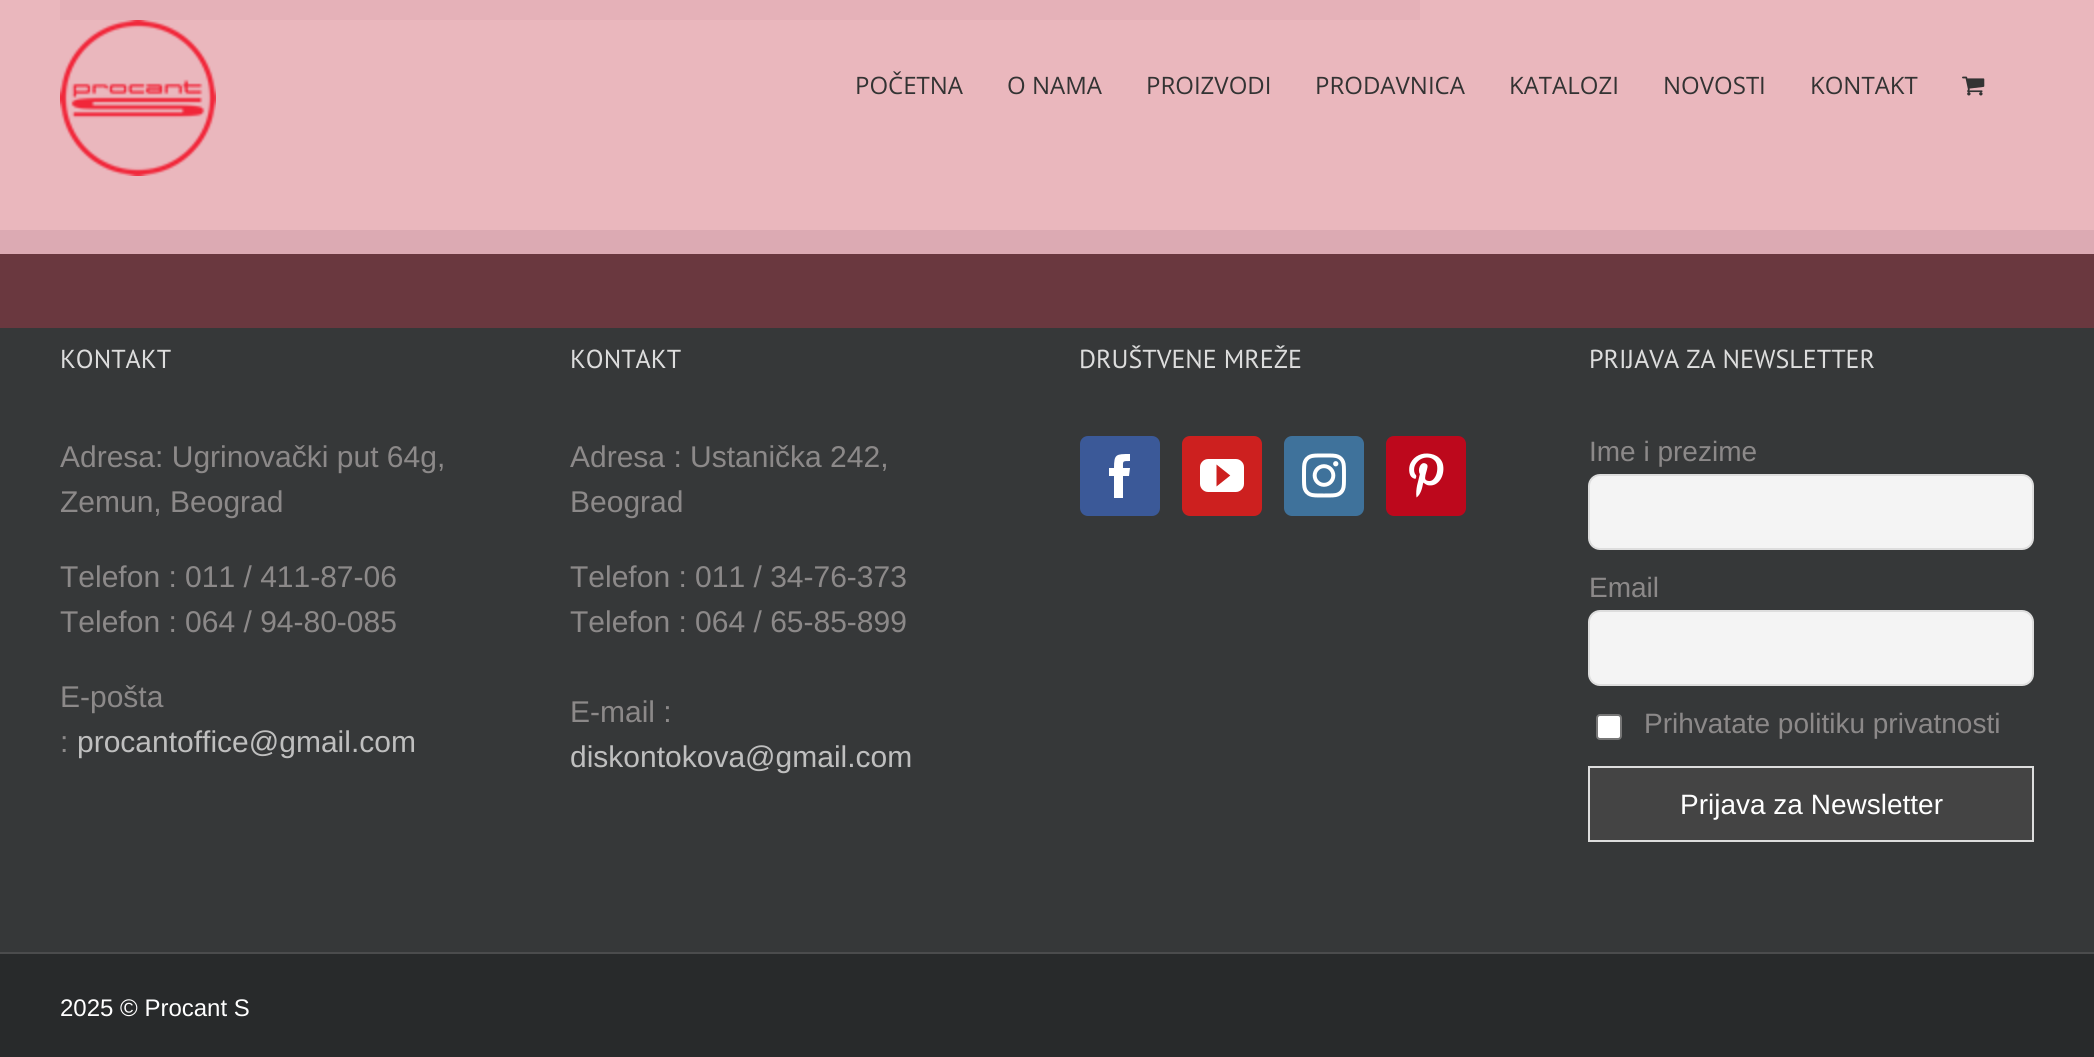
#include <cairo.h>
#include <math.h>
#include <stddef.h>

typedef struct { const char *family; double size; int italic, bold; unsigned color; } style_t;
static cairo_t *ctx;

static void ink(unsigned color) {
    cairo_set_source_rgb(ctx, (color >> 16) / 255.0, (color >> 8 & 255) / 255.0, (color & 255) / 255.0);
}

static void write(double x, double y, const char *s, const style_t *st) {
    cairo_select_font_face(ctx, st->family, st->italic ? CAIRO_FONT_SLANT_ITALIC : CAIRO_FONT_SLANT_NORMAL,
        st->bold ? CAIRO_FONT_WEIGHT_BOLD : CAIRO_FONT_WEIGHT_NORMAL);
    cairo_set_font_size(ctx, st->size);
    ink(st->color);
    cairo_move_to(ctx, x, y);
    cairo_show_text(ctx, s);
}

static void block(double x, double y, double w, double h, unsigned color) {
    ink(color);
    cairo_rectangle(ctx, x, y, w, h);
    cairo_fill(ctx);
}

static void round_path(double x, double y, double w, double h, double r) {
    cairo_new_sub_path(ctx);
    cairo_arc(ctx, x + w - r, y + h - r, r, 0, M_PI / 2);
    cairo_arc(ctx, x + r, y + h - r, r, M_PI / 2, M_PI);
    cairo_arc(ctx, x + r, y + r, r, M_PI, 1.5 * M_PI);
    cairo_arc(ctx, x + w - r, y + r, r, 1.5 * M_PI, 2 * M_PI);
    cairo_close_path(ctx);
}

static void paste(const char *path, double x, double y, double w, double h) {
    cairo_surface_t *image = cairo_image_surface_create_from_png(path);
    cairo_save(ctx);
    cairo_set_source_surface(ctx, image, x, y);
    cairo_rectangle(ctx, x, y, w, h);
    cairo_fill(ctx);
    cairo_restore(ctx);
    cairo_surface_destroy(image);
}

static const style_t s1 = {"Open Sans", 24, 0, 0, 0x333333};
static const style_t s2 = {"PT Sans", 26, 0, 0, 0xdddddd};
static const style_t s3 = {"Liberation Sans", 30, 0, 0, 0x8c8989};
static const style_t s4 = {"Liberation Sans", 30, 0, 0, 0xbfbfbf};
static const style_t s5 = {"Liberation Sans", 28, 0, 0, 0x8c8989};
static const style_t s6 = {"Liberation Sans", 28, 0, 0, 0xffffff};
static const style_t s7 = {"Liberation Sans", 24, 0, 0, 0xffffff};

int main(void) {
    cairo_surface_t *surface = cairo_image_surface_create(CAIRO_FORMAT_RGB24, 2094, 1057);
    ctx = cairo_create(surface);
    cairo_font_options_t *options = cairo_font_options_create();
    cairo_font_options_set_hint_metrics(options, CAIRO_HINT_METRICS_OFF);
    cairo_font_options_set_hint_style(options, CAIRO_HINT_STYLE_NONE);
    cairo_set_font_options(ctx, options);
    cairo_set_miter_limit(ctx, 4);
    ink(0xeab7bd);
    cairo_paint(ctx);
    block(60, 0, 1360, 20, 0xe5b1b8);
    paste("pic1.png", 60, 20, 156, 156);
    write(855, 94, "POČETNA", &s1);
    write(1007, 94, "O NAMA", &s1);
    write(1146, 94, "PROIZVODI", &s1);
    write(1315, 94, "PRODAVNICA", &s1);
    write(1509, 94, "KATALOZI", &s1);
    write(1663, 94, "NOVOSTI", &s1);
    write(1810, 94, "KONTAKT", &s1);
    paste("pic2.png", 1962, 76, 23, 20);
    block(0, 328, 2094, 624, 0x363839);
    block(0, 254, 2094, 74, 0x6a383f);
    block(0, 230, 2094, 24, 0xdcaab3);
    write(60, 368, "KONTAKT", &s2);
    write(60, 467, "Adresa: Ugrinovački put 64g,", &s3);
    write(60, 512, "Zemun, Beograd", &s3);
    write(60, 587, "Telefon : 011 / 411-87-06", &s3);
    write(60, 632, "Telefon : 064 / 94-80-085", &s3);
    write(60, 707, "E-pošta", &s3);
    write(60, 752, ":", &s3);
    write(77, 752, "procantoffice@gmail.com", &s4);
    write(570, 368, "KONTAKT", &s2);
    write(570, 467, "Adresa : Ustanička 242,", &s3);
    write(570, 512, "Beograd", &s3);
    write(570, 587, "Telefon : 011 / 34-76-373", &s3);
    write(570, 632, "Telefon : 064 / 65-85-899", &s3);
    write(570, 722, "E-mail :", &s3);
    write(570, 767, "diskontokova@gmail.com", &s4);
    write(1079, 368, "DRUŠTVENE MREŽE", &s2);
    ink(0x3b5998);
    round_path(1081, 437, 78, 78, 7);
    cairo_fill_preserve(ctx);
    cairo_stroke(ctx);
    ink(0xffffff);
    cairo_new_path(ctx);
    cairo_move_to(ctx, 1123, 498);
    cairo_line_to(ctx, 1114, 498);
    cairo_line_to(ctx, 1114, 476);
    cairo_line_to(ctx, 1109, 476);
    cairo_line_to(ctx, 1109, 468);
    cairo_line_to(ctx, 1114, 468);
    cairo_curve_to(ctx, 1114, 454, 1116, 454, 1130, 454);
    cairo_line_to(ctx, 1130, 461);
    cairo_curve_to(ctx, 1122, 461, 1123, 461, 1123, 468);
    cairo_line_to(ctx, 1130, 468);
    cairo_line_to(ctx, 1129, 476);
    cairo_line_to(ctx, 1123, 476);
    cairo_close_path(ctx);
    cairo_fill(ctx);
    ink(0xcd201f);
    round_path(1183, 437, 78, 78, 7);
    cairo_fill_preserve(ctx);
    cairo_stroke(ctx);
    paste("pic3.png", 1200, 459, 44, 33);
    ink(0x3f729b);
    round_path(1285, 437, 78, 78, 7);
    cairo_fill_preserve(ctx);
    cairo_stroke(ctx);
    paste("pic4.png", 1302, 453, 44, 45);
    ink(0xbd081c);
    round_path(1387, 437, 78, 78, 7);
    cairo_fill_preserve(ctx);
    cairo_stroke(ctx);
    paste("pic5.png", 1409, 453, 35, 45);
    write(1589, 368, "PRIJAVA ZA NEWSLETTER", &s2);
    write(1589, 461, "Ime i prezime", &s5);
    ink(0xf4f4f4);
    round_path(1589, 475, 444, 74, 11);
    cairo_fill_preserve(ctx);
    ink(0xdddddd);
    cairo_stroke(ctx);
    write(1589, 597, "Email", &s5);
    ink(0xf4f4f4);
    round_path(1589, 611, 444, 74, 11);
    cairo_fill_preserve(ctx);
    ink(0xdddddd);
    cairo_stroke(ctx);
    ink(0xffffff);
    round_path(1597, 715, 24, 24, 3);
    cairo_fill_preserve(ctx);
    ink(0x767676);
    cairo_stroke(ctx);
    write(1644, 733, "Prihvatate politiku privatnosti", &s5);
    ink(0x444444);
    cairo_rectangle(ctx, 1589, 767, 444, 74);
    cairo_fill_preserve(ctx);
    ink(0xdddddd);
    cairo_stroke(ctx);
    write(1680, 814, "Prijava za Newsletter", &s6);
    block(0, 954, 2094, 103, 0x282a2b);
    block(0, 952, 2094, 2, 0x4b4c4d);
    write(60, 1016, "2025 © Procant S", &s7);
    cairo_surface_write_to_png(surface, "screenshot.png");
    cairo_font_options_destroy(options);
    cairo_destroy(ctx);
    cairo_surface_destroy(surface);
    return 0;
}
